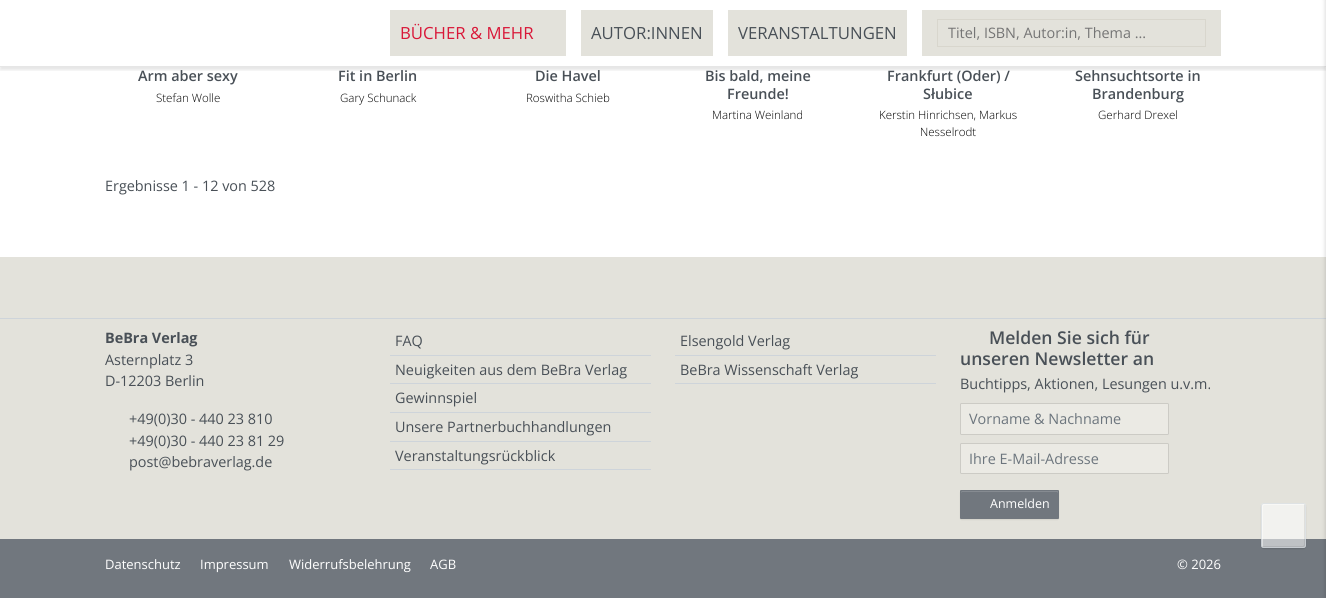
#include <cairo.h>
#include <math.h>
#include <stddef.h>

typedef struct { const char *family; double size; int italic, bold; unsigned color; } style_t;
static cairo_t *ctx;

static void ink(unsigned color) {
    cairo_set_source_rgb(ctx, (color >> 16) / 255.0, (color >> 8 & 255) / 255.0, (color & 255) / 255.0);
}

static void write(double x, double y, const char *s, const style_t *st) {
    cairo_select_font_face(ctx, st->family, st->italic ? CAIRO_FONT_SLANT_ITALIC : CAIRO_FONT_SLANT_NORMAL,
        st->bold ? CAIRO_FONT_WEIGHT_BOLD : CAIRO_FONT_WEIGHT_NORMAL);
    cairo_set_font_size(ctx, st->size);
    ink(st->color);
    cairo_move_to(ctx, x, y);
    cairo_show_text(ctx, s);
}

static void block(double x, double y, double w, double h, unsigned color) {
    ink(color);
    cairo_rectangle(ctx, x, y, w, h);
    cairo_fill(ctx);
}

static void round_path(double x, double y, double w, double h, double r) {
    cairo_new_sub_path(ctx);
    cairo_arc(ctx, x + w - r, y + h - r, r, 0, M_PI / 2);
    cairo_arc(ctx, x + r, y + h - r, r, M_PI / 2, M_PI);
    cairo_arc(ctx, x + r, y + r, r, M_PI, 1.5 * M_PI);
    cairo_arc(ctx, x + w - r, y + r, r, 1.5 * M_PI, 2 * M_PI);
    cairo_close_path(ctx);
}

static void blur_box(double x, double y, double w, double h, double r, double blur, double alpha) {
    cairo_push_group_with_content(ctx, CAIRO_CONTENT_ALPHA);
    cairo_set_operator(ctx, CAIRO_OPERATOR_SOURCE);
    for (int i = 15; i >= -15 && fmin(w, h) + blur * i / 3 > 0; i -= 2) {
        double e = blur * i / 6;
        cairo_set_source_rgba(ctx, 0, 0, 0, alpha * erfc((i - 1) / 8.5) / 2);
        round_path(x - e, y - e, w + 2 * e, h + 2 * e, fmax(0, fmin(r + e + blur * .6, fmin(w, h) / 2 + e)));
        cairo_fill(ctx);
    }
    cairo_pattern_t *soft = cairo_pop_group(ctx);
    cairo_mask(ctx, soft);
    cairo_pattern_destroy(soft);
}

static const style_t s1 = {"Open Sans", 16.75, 0, 0, 0xd91738};
static const style_t s2 = {"Open Sans", 16.75, 0, 0, 0x495057};
static const style_t s3 = {"Open Sans", 14.4, 0, 0, 0x757575};
static const style_t s4 = {"Open Sans SemiBold", 14.4, 0, 0, 0x495057};
static const style_t s5 = {"Open Sans Light", 11.5, 0, 0, 0x000000};
static const style_t s6 = {"Open Sans", 14.4, 0, 0, 0x495057};
static const style_t s7 = {"Open Sans", 14.4, 0, 1, 0x495057};
static const style_t s8 = {"Open Sans SemiBold", 17.6, 0, 0, 0x495057};
static const style_t s9 = {"Open Sans", 14.4, 0, 0, 0x6c757d};
static const style_t s10 = {"Open Sans", 12.5, 0, 0, 0xffffff};
static const style_t s11 = {"Open Sans", 13, 0, 0, 0xffffff};

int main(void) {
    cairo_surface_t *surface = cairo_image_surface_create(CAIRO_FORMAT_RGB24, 1326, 598);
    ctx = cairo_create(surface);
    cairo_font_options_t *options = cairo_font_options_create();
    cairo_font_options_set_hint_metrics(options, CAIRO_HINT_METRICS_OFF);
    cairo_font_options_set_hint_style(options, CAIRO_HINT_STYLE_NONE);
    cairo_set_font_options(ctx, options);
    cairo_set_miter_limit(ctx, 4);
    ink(0xffffff);
    cairo_paint(ctx);
    cairo_save(ctx);
    cairo_rectangle(ctx, 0, 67, 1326, 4);
    cairo_clip(ctx);
    ink(0x000000);
    blur_box(0, 3, 1326, 67, 0, 1.5, 0.1);
    cairo_restore(ctx);
    block(0, 66, 1326, 1, 0xe6e6e6);
    block(390, 10, 176, 46, 0xe3e2db);
    write(400, 39, "BÜCHER & MEHR", &s1);
    block(581, 10, 132, 46, 0xe3e2db);
    write(591, 39, "AUTOR:INNEN", &s2);
    block(728, 10, 179, 46, 0xe3e2db);
    write(738, 39, "VERANSTALTUNGEN", &s2);
    block(922, 10, 299, 46, 0xe3e2db);
    cairo_rectangle(ctx, 937.5, 19.5, 268, 27);
    ink(0xd8d6cd);
    cairo_set_line_width(ctx, 1);
    cairo_stroke(ctx);
    write(948, 38, "Titel, ISBN, Autor:in, Thema ...", &s3);
    write(138, 81, "Arm aber sexy", &s4);
    write(156, 102, "Stefan Wolle", &s5);
    write(338, 81, "Fit in Berlin", &s4);
    write(340, 102, "Gary Schunack", &s5);
    write(535, 81, "Die Havel", &s4);
    write(526, 102, "Roswitha Schieb", &s5);
    write(705, 81, "Bis bald, meine", &s4);
    write(727, 99, "Freunde!", &s4);
    write(712, 119, "Martina Weinland", &s5);
    write(887, 81, "Frankfurt (Oder) /", &s4);
    write(923, 99, "Słubice", &s4);
    write(879, 119, "Kerstin Hinrichsen, Markus", &s5);
    write(920, 136, "Nesselrodt", &s5);
    write(1075, 81, "Sehnsuchtsorte in", &s4);
    write(1092, 99, "Brandenburg", &s4);
    write(1098, 119, "Gerhard Drexel", &s5);
    write(105, 191, "Ergebnisse 1 - 12 von 528", &s6);
    block(0, 257, 1326, 61, 0xe3e2db);
    block(0, 318, 1326, 1, 0xced4da);
    block(0, 319, 1326, 220, 0xe3e2db);
    block(0, 539, 1326, 59, 0x71777e);
    ink(0x000000);
    blur_box(1326, -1, 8, 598, 0, 2.5, 0.2);
    write(105, 343, "BeBra Verlag", &s7);
    write(105, 365, "Asternplatz 3", &s6);
    write(105, 386, "D-12203 Berlin", &s6);
    write(129, 424, "+49(0)30 - 440 23 810", &s6);
    write(129, 446, "+49(0)30 - 440 23 81 29", &s6);
    write(129, 467, "post@bebraverlag.de", &s6);
    block(390, 355, 261, 1, 0xced4da);
    write(395, 346, "FAQ", &s6);
    block(390, 383, 261, 1, 0xced4da);
    write(395, 375, "Neuigkeiten aus dem BeBra Verlag", &s6);
    block(390, 412, 261, 1, 0xced4da);
    write(395, 403, "Gewinnspiel", &s6);
    block(390, 441, 261, 1, 0xced4da);
    write(395, 432, "Unsere Partnerbuchhandlungen", &s6);
    block(390, 469, 261, 1, 0xced4da);
    write(395, 461, "Veranstaltungsrückblick", &s6);
    block(675, 355, 261, 1, 0xced4da);
    write(680, 346, "Elsengold Verlag", &s6);
    block(675, 383, 261, 1, 0xced4da);
    write(680, 375, "BeBra Wissenschaft Verlag", &s6);
    write(989, 344, "Melden Sie sich für", &s8);
    write(960, 365, "unseren Newsletter an", &s8);
    write(960, 389, "Buchtipps, Aktionen, Lesungen u.v.m.", &s6);
    ink(0xebeae4);
    round_path(960.5, 403.5, 208, 31, 1);
    cairo_fill_preserve(ctx);
    ink(0xcccbc5);
    cairo_stroke(ctx);
    write(969, 424, "Vorname & Nachname", &s9);
    ink(0xebeae4);
    round_path(960.5, 443.5, 208, 30, 1);
    cairo_fill_preserve(ctx);
    ink(0xcccbc5);
    cairo_stroke(ctx);
    write(969, 464, "Ihre E-Mail-Adresse", &s9);
    ink(0x000000);
    blur_box(960, 491, 99, 29, 1.5, 0.5, 0.07);
    ink(0x71777e);
    round_path(960, 490, 99, 29, 1.5);
    cairo_fill(ctx);
    ink(0x868b91);
    cairo_new_path(ctx);
    cairo_move_to(ctx, 962, 492);
    cairo_line_to(ctx, 1057, 492);
    cairo_line_to(ctx, 1058, 493);
    cairo_line_to(ctx, 1058, 491);
    cairo_line_to(ctx, 962, 491);
    cairo_curve_to(ctx, 961, 491, 961, 493, 961, 493);
    cairo_close_path(ctx);
    cairo_fill(ctx);
    round_path(960.5, 490.5, 98, 28, 1);
    ink(0x71777e);
    cairo_stroke(ctx);
    write(990, 508, "Anmelden", &s10);
    write(105, 569, "Datenschutz", &s11);
    write(200, 569, "Impressum", &s11);
    write(289, 569, "Widerrufsbelehrung", &s11);
    write(430, 569, "AGB", &s11);
    write(1177, 569, "© 2026", &s11);
    cairo_save(ctx);
    cairo_set_fill_rule(ctx, CAIRO_FILL_RULE_EVEN_ODD);
    cairo_new_path(ctx);
    cairo_move_to(ctx, 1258, 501);
    cairo_line_to(ctx, 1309, 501);
    cairo_line_to(ctx, 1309, 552);
    cairo_line_to(ctx, 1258, 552);
    cairo_close_path(ctx);
    cairo_move_to(ctx, 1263.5, 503);
    cairo_line_to(ctx, 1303.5, 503);
    cairo_curve_to(ctx, 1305, 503, 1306, 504, 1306, 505.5);
    cairo_line_to(ctx, 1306, 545.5);
    cairo_curve_to(ctx, 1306, 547, 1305, 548, 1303.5, 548);
    cairo_line_to(ctx, 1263.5, 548);
    cairo_curve_to(ctx, 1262, 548, 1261, 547, 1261, 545.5);
    cairo_line_to(ctx, 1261, 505.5);
    cairo_curve_to(ctx, 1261, 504, 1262, 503, 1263.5, 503);
    cairo_close_path(ctx);
    cairo_clip(ctx);
    ink(0x000000);
    blur_box(1261, 504, 45, 45, 2.5, 0.5, 0.11);
    cairo_restore(ctx);
    cairo_set_source_rgba(ctx, 1, 1, 1, 0.55);
    round_path(1261, 503, 45, 45, 2.5);
    cairo_fill(ctx);
    cairo_set_source_rgba(ctx, 0, 0, 0, 0.08);
    cairo_new_path(ctx);
    cairo_move_to(ctx, 1262, 546);
    cairo_curve_to(ctx, 1262, 547, 1263, 547, 1264, 547);
    cairo_line_to(ctx, 1304, 547);
    cairo_curve_to(ctx, 1304, 547, 1305, 546, 1305, 546);
    cairo_line_to(ctx, 1305, 506);
    cairo_curve_to(ctx, 1305, 505, 1305, 504, 1304, 504);
    cairo_line_to(ctx, 1304, 545);
    cairo_line_to(ctx, 1303, 546);
    cairo_close_path(ctx);
    cairo_fill(ctx);
    cairo_set_source_rgba(ctx, 1, 1, 1, 0.44);
    cairo_new_path(ctx);
    cairo_move_to(ctx, 1264, 505);
    cairo_line_to(ctx, 1305, 505);
    cairo_curve_to(ctx, 1305, 504, 1304, 504, 1304, 504);
    cairo_line_to(ctx, 1264, 504);
    cairo_curve_to(ctx, 1263, 504, 1262, 505, 1262, 506);
    cairo_line_to(ctx, 1262, 546);
    cairo_curve_to(ctx, 1262, 546, 1262, 547, 1263, 547);
    cairo_line_to(ctx, 1263, 506);
    cairo_close_path(ctx);
    cairo_fill(ctx);
    round_path(1261.5, 503.5, 44, 44, 2);
    cairo_set_source_rgba(ctx, 0.808, 0.831, 0.855, 0.55);
    cairo_stroke(ctx);
    cairo_surface_write_to_png(surface, "screenshot.png");
    cairo_font_options_destroy(options);
    cairo_destroy(ctx);
    cairo_surface_destroy(surface);
    return 0;
}
